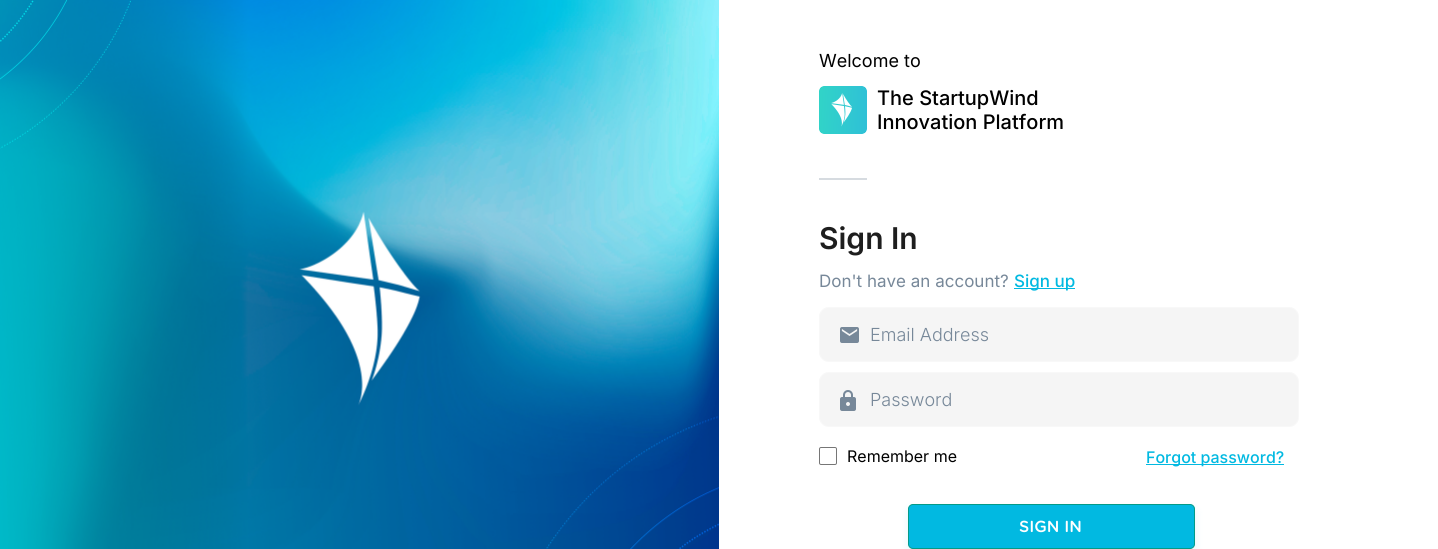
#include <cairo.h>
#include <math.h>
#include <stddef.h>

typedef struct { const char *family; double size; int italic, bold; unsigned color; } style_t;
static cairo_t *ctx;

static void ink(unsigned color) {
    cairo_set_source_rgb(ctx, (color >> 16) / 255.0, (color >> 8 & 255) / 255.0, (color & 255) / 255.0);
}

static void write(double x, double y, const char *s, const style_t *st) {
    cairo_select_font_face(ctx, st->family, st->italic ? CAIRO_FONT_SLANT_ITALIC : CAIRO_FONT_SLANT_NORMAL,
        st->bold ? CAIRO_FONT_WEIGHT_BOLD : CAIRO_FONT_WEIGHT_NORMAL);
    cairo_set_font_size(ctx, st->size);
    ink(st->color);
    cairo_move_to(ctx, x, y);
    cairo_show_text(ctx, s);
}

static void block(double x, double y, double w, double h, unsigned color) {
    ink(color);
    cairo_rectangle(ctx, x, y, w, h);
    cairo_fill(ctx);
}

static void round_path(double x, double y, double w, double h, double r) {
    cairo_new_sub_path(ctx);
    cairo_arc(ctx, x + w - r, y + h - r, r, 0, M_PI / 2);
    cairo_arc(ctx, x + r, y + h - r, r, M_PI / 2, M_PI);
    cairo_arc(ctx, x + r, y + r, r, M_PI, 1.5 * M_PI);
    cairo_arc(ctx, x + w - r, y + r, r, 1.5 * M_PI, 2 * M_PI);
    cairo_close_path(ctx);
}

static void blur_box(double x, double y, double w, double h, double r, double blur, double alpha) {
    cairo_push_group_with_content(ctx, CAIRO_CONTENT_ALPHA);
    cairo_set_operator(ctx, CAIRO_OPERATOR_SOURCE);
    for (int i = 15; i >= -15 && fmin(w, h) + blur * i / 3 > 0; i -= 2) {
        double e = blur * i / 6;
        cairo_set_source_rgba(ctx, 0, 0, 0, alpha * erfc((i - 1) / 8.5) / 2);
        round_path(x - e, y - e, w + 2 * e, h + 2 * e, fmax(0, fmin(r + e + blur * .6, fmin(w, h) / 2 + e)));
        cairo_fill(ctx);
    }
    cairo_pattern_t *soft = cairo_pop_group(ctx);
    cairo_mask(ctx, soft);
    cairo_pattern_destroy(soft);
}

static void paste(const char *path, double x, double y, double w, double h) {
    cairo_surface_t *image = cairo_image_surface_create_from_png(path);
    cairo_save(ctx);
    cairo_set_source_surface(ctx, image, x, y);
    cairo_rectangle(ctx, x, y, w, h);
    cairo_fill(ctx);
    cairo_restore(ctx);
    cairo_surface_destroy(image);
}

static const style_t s1 = {"Inter", 18, 0, 0, 0x000000};
static const style_t s2 = {"Inter Medium", 20, 0, 0, 0x000000};
static const style_t s3 = {"Inter SemiBold", 30, 0, 0, 0x1e1e1e};
static const style_t s4 = {"Inter", 17, 0, 0, 0x778899};
static const style_t s5 = {"Inter Medium", 17, 0, 0, 0x01b9e1};
static const style_t s6 = {"Inter Light", 18, 0, 0, 0x778899};
static const style_t s7 = {"Inter", 16, 0, 0, 0x000000};
static const style_t s8 = {"Inter Medium", 16, 0, 0, 0x01b9e1};
static const style_t s9 = {"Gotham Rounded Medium", 16, 0, 0, 0xffffff};

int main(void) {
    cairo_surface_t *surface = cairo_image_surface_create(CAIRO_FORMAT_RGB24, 1438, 549);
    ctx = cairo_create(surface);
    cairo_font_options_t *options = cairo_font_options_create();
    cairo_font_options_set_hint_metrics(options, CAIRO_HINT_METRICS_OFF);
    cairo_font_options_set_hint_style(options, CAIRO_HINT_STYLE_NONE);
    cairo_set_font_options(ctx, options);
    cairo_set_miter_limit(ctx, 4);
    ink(0xffffff);
    cairo_paint(ctx);
    paste("pic1.png", 0, 0, 719, 549);
    write(819, 67, "Welcome to", &s1);
    paste("pic2.png", 819, 86, 48, 48);
    write(877, 105, "The StartupWind", &s2);
    write(877, 129, "Innovation Platform", &s2);
    block(819, 178, 48, 2, 0xd6dbe0);
    write(819, 249, "Sign In", &s3);
    write(819, 287, "Don't have an account?", &s4);
    block(1014, 288, 61, 1, 0x01b9e1);
    write(1014, 287, "Sign up", &s5);
    ink(0xf5f5f5);
    round_path(819, 307, 480, 55, 10);
    cairo_fill(ctx);
    round_path(819.5, 307.5, 479, 54, 9.5);
    cairo_set_source_rgba(ctx, 1, 1, 1, 0.3);
    cairo_set_line_width(ctx, 1);
    cairo_stroke(ctx);
    paste("pic3.png", 840, 327, 19, 16);
    write(870, 341, "Email Address", &s6);
    ink(0xf5f5f5);
    round_path(819, 372, 480, 55, 10);
    cairo_fill(ctx);
    round_path(819.5, 372.5, 479, 54, 9.5);
    cairo_set_source_rgba(ctx, 1, 1, 1, 0.3);
    cairo_stroke(ctx);
    paste("pic4.png", 840, 390, 16, 21);
    write(870, 406, "Password", &s6);
    round_path(819.5, 447.5, 17, 17, 1.5);
    ink(0x767676);
    cairo_stroke(ctx);
    write(847, 462, "Remember me", &s7);
    block(1146, 464, 138, 1, 0x01b9e1);
    write(1146, 463, "Forgot password?", &s8);
    ink(0x01b9e1);
    blur_box(908, 508, 287, 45, 5, 4.5, 0.11);
    ink(0x01b9e1);
    round_path(908.5, 504.5, 286, 44, 4.5);
    cairo_fill_preserve(ctx);
    ink(0x039a88);
    cairo_stroke(ctx);
    write(1019, 532, "SIGN IN", &s9);
    cairo_surface_write_to_png(surface, "screenshot.png");
    cairo_font_options_destroy(options);
    cairo_destroy(ctx);
    cairo_surface_destroy(surface);
    return 0;
}
